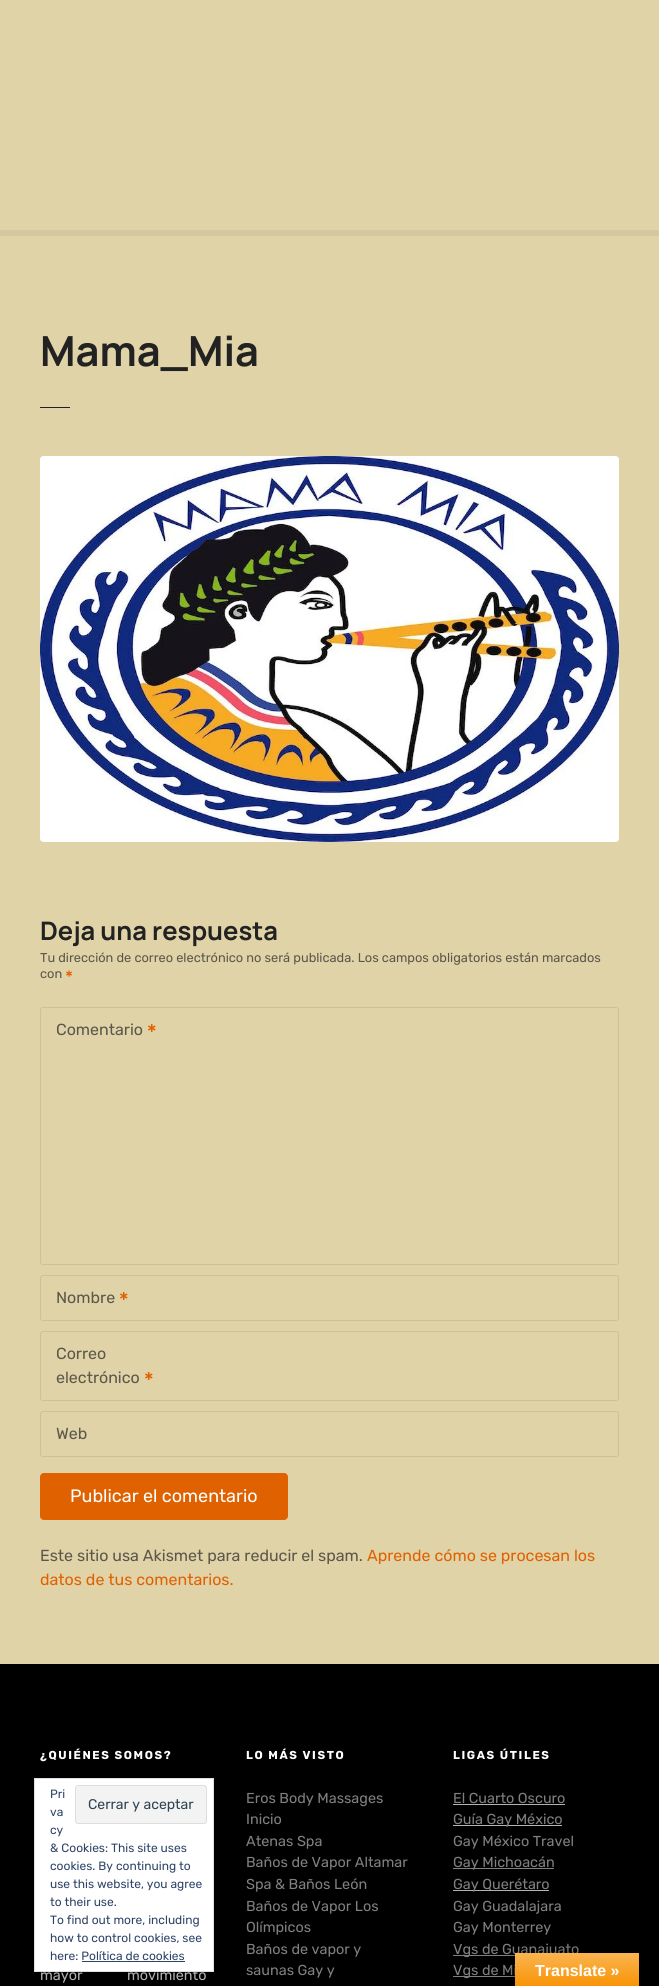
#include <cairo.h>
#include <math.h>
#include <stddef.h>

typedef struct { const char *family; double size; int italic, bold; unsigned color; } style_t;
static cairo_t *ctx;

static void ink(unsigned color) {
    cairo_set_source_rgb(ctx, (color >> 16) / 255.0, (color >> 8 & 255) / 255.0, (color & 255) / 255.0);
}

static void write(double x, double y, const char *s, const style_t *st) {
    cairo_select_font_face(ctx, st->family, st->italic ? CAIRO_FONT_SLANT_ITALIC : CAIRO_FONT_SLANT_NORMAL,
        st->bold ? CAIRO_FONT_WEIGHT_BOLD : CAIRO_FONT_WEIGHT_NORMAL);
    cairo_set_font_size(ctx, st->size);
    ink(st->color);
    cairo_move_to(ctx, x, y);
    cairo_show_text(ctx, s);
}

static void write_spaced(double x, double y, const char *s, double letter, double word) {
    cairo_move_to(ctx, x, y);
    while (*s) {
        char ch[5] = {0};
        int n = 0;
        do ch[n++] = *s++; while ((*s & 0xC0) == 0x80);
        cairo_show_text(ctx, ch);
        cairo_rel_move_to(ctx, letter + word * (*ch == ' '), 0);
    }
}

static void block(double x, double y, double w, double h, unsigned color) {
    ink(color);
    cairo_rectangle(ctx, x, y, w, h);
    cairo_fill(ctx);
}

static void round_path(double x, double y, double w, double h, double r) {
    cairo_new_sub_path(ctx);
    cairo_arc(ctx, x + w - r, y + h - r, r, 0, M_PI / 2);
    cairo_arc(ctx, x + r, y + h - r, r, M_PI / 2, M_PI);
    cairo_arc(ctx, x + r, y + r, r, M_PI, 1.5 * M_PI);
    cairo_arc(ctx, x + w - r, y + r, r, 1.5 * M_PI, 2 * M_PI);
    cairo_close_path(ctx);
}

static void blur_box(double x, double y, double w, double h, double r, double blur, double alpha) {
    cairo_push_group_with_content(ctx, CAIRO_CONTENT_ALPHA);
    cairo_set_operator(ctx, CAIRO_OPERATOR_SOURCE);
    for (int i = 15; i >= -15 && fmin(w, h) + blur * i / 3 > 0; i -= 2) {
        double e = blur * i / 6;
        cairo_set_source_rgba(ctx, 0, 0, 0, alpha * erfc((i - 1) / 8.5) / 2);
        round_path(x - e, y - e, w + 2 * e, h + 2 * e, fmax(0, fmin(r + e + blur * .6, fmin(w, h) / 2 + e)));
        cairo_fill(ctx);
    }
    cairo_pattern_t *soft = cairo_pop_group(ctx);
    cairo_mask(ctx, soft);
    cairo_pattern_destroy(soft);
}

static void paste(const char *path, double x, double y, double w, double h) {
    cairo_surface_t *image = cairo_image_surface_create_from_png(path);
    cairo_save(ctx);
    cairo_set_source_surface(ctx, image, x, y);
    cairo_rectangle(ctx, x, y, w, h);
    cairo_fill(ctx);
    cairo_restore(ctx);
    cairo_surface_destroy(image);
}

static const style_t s1 = {"Manrope", 41.5, 0, 1, 0x222222};
static const style_t s2 = {"Manrope", 25.5, 0, 1, 0x222222};
static const style_t s3 = {"Rubik", 12.8, 0, 0, 0x5b574a};
static const style_t s4 = {"Rubik", 16, 0, 0, 0x5b574a};
static const style_t s5 = {"Rubik", 18, 0, 0, 0xffffff};
static const style_t s6 = {"Rubik", 16, 0, 0, 0xe06100};
static const style_t s7 = {"Rubik", 14.4, 0, 0, 0x808080};
static const style_t s8 = {"Rubik", 12, 0, 0, 0x2e4467};
static const style_t s9 = {"Rubik", 14, 0, 0, 0x2e4453};
static const style_t s10 = {"Liberation Sans", 16, 0, 1, 0xffffff};

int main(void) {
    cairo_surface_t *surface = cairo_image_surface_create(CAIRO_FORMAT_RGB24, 659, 1986);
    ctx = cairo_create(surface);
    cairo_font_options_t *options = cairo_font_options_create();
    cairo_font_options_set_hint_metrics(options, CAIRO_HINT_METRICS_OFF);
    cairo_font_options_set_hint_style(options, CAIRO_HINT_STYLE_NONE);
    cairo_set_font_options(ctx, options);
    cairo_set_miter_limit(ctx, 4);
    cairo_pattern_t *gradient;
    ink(0xe0d3a8);
    cairo_paint(ctx);
    block(0, 230, 659, 6, 0xd5c8a0);
    write(40, 366, "Mama_Mia", &s1);
    block(40, 407, 30, 1, 0x222222);
    paste("pic1.png", 40, 456, 579, 386);
    write(40, 940, "Deja una respuesta", &s2);
    write(40, 962, "Tu dirección de correo electrónico no será publicada. Los campos obligatorios están marcados", &s3);
    write(40, 978, "con", &s3);
    paste("pic2.png", 66, 970, 6, 7);
    round_path(40.5, 1007.5, 578, 257, 2.5);
    ink(0xcdc19b);
    cairo_set_line_width(ctx, 1);
    cairo_stroke(ctx);
    write(56, 1035, "Comentario", &s4);
    paste("pic3.png", 148, 1024, 8, 8);
    round_path(40.5, 1275.5, 578, 45, 2.5);
    ink(0xcdc19b);
    cairo_stroke(ctx);
    write(56, 1303, "Nombre", &s4);
    paste("pic3.png", 120, 1292, 8, 8);
    round_path(40.5, 1331.5, 578, 69, 2.5);
    ink(0xcdc19b);
    cairo_stroke(ctx);
    write(56, 1359, "Correo", &s4);
    write(56, 1383, "electrónico", &s4);
    paste("pic3.png", 145, 1372, 8, 8);
    round_path(40.5, 1411.5, 578, 45, 2.5);
    ink(0xcdc19b);
    cairo_stroke(ctx);
    write(56, 1439, "Web", &s4);
    ink(0xe06100);
    round_path(40, 1473, 248, 47, 4);
    cairo_fill(ctx);
    write(70, 1502, "Publicar el comentario", &s5);
    write(40, 1561, "Este sitio usa Akismet para reducir el spam.", &s4);
    write(367, 1561, "Aprende cómo se procesan los", &s6);
    write(40, 1585, "datos de tus comentarios.", &s6);
    block(0, 1664, 659, 322, 0x000000);
    cairo_select_font_face(ctx, "Rubik", CAIRO_FONT_SLANT_NORMAL, CAIRO_FONT_WEIGHT_BOLD);
    cairo_set_font_size(ctx, 11.5);
    ink(0xffffff);
    write_spaced(40, 1759, "¿QUIÉNES SOMOS?", 1.6, 0);
    cairo_select_font_face(ctx, "Rubik", CAIRO_FONT_SLANT_NORMAL, CAIRO_FONT_WEIGHT_NORMAL);
    cairo_set_font_size(ctx, 14.4);
    ink(0xb3b3b3);
    write_spaced(40, 1980, "mayor movimiento", 0, 41);
    cairo_select_font_face(ctx, "Rubik", CAIRO_FONT_SLANT_NORMAL, CAIRO_FONT_WEIGHT_BOLD);
    cairo_set_font_size(ctx, 11.5);
    ink(0xffffff);
    write_spaced(246, 1759, "LO MÁS VISTO", 1.6, 0);
    write(246, 1803, "Eros Body Massages", &s7);
    write(246, 1824, "Inicio", &s7);
    write(246, 1846, "Atenas Spa", &s7);
    write(246, 1867, "Baños de Vapor Altamar", &s7);
    write(246, 1889, "Spa & Baños León", &s7);
    write(246, 1911, "Baños de Vapor Los", &s7);
    write(246, 1932, "Olímpicos", &s7);
    write(246, 1954, "Baños de vapor y", &s7);
    write(246, 1975, "saunas Gay y", &s7);
    cairo_select_font_face(ctx, "Rubik", CAIRO_FONT_SLANT_NORMAL, CAIRO_FONT_WEIGHT_BOLD);
    cairo_set_font_size(ctx, 11.5);
    ink(0xffffff);
    write_spaced(453, 1759, "LIGAS ÚTILES", 1.6, 0);
    write(453, 1803, "El Cuarto Oscuro", &s7);
    block(453, 1804, 112, 1, 0xb3b3b3);
    block(453, 1825, 109, 1, 0xb3b3b3);
    write(453, 1824, "Guía Gay México", &s7);
    write(453, 1846, "Gay México Travel", &s7);
    block(453, 1868, 101, 1, 0x808080);
    write(453, 1867, "Gay Michoacán", &s7);
    block(453, 1890, 96, 1, 0xb3b3b3);
    write(453, 1889, "Gay Querétaro", &s7);
    write(453, 1911, "Gay Guadalajara", &s7);
    write(453, 1932, "Gay Monterrey", &s7);
    block(453, 1955, 62, 1, 0x808080);
    write(453, 1954, "Vgs de Guanajuato", &s7);
    block(453, 1976, 62, 1, 0x808080);
    write(453, 1975, "Vgs de Mi", &s7);
    ink(0xffffff);
    cairo_rectangle(ctx, 34.5, 1778.5, 179, 193);
    cairo_fill_preserve(ctx);
    ink(0xdedede);
    cairo_stroke(ctx);
    write(50, 1798, "Pri", &s8);
    ink(0xf3f3f3);
    round_path(75.5, 1785.5, 131, 38, 2.5);
    cairo_fill_preserve(ctx);
    ink(0xdedede);
    cairo_stroke(ctx);
    write(88, 1809, "Cerrar y aceptar", &s9);
    write(50, 1816, "va", &s8);
    write(50, 1834, "cy", &s8);
    write(50, 1852, "& Cookies: This site uses", &s8);
    write(50, 1870, "cookies. By continuing to", &s8);
    write(50, 1888, "use this website, you agree", &s8);
    write(50, 1906, "to their use.", &s8);
    write(50, 1924, "To find out more, including", &s8);
    write(50, 1942, "how to control cookies, see", &s8);
    write(50, 1960, "here: Política de cookies", &s8);
    block(82, 1961, 103, 1, 0x2e4467);
    ink(0x000000);
    blur_box(515, 1953, 124, 33, 0, 4.5, 0.3);
    gradient = cairo_pattern_create_linear(577, 1953, 577, 1986);
    cairo_pattern_add_color_stop_rgba(gradient, 0, 0.984, 0.706, 0.314, 1);
    cairo_pattern_add_color_stop_rgba(gradient, 1, 0.973, 0.58, 0.024, 1);
    cairo_set_source(ctx, gradient);
    cairo_pattern_destroy(gradient);
    cairo_rectangle(ctx, 515, 1953, 124, 33);
    cairo_fill(ctx);
    write(535, 1976, "Translate »", &s10);
    cairo_surface_write_to_png(surface, "screenshot.png");
    cairo_font_options_destroy(options);
    cairo_destroy(ctx);
    cairo_surface_destroy(surface);
    return 0;
}
